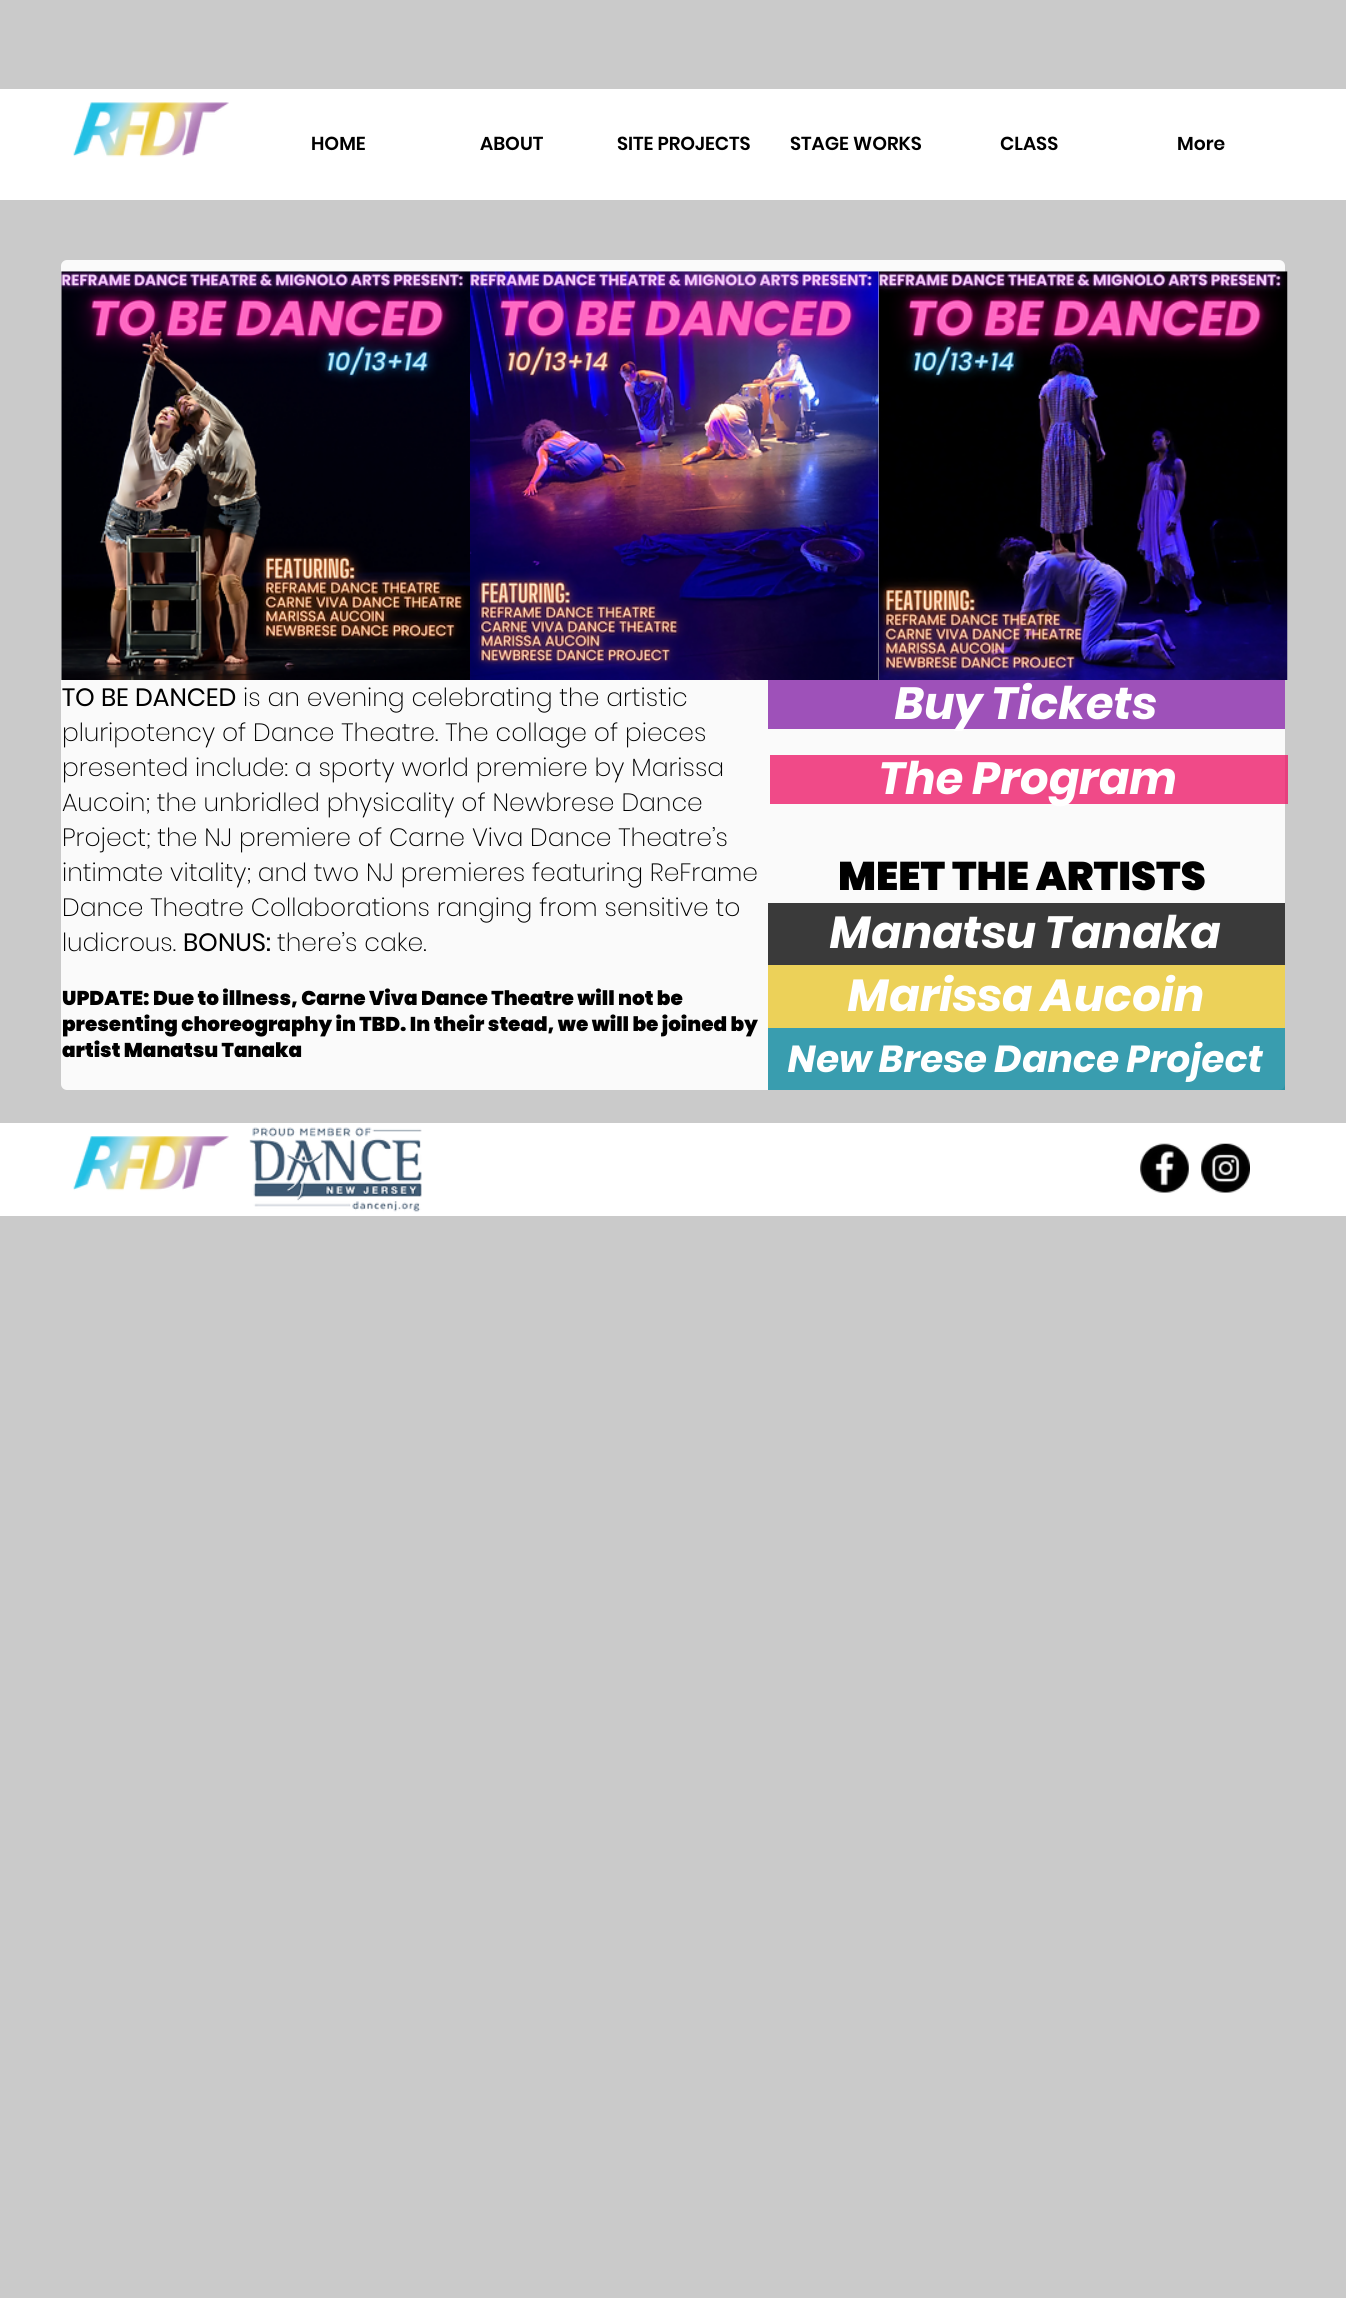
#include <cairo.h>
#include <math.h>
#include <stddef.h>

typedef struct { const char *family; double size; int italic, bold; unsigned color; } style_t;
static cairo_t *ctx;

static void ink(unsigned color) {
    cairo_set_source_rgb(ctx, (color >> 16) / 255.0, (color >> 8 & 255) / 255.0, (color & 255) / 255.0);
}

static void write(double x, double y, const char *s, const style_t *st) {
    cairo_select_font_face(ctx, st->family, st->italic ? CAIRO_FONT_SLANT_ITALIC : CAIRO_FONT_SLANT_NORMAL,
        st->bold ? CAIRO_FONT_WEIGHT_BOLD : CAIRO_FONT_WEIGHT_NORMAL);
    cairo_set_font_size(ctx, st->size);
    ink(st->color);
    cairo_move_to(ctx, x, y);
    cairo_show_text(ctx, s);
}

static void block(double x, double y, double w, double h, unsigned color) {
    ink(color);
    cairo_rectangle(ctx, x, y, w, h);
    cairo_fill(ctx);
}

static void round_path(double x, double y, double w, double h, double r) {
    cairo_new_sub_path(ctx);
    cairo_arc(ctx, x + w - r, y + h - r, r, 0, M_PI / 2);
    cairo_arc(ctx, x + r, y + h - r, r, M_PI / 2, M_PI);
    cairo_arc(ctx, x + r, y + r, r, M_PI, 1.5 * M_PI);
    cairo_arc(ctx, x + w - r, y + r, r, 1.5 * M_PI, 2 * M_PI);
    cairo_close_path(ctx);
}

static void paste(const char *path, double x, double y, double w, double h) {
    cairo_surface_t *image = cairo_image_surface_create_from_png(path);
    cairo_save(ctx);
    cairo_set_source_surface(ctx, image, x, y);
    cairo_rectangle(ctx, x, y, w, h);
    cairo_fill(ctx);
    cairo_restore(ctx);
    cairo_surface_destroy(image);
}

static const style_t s1 = {"Poppins SemiBold", 18.75, 0, 0, 0x000000};
static const style_t s2 = {"Poppins", 25, 0, 0, 0x000000};
static const style_t s3 = {"Poppins ExtraLight", 25, 0, 0, 0x000000};
static const style_t s4 = {"Poppins", 45, 1, 1, 0xffffff};
static const style_t s5 = {"Poppins Black", 40, 0, 0, 0x000000};
static const style_t s6 = {"Poppins Black", 20, 0, 0, 0x000000};
static const style_t s7 = {"Poppins", 37.5, 1, 1, 0xffffff};

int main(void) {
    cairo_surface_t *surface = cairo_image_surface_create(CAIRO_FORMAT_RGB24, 1346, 2298);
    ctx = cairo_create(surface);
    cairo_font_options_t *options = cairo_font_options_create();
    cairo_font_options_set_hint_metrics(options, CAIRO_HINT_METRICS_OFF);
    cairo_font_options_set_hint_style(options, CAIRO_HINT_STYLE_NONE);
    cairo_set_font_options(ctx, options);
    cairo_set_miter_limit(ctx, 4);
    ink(0xcacaca);
    cairo_paint(ctx);
    block(0, 89, 1346, 111, 0xffffff);
    paste("pic1.png", 73, 102, 156, 55);
    write(311, 150, "HOME", &s1);
    write(480, 150, "ABOUT", &s1);
    write(617, 150, "SITE PROJECTS", &s1);
    write(790, 150, "STAGE WORKS", &s1);
    write(1000, 150, "CLASS", &s1);
    write(1177, 150, "More", &s1);
    ink(0xfafafa);
    round_path(61, 260, 1224, 830, 6);
    cairo_fill(ctx);
    block(770, 755, 515, 49, 0xf04a88);
    paste("pic2.png", 61, 271, 409, 409);
    paste("pic3.png", 470, 271, 409, 409);
    paste("pic4.png", 878, 271, 410, 409);
    write(62, 706, "TO BE DANCED", &s2);
    write(243, 706, "is an evening celebrating the artistic", &s3);
    write(62, 741, "pluripotency of Dance Theatre. The collage of pieces", &s3);
    write(62, 776, "presented include: a sporty world premiere by Marissa", &s3);
    write(62, 811, "Aucoin; the unbridled physicality of Newbrese Dance", &s3);
    write(62, 846, "Project; the NJ premiere of Carne Viva Dance Theatre’s", &s3);
    write(62, 881, "intimate vitality; and two NJ premieres featuring ReFrame", &s3);
    write(62, 916, "Dance Theatre Collaborations ranging from sensitive to", &s3);
    write(62, 951, "ludicrous.", &s3);
    write(183, 951, "BONUS:", &s2);
    write(277, 951, "there’s cake.", &s3);
    block(768, 680, 517, 49, 0x9e51b9);
    write(895, 719, "Buy Tickets", &s4);
    write(879, 794, "The Program", &s4);
    write(838, 890, "MEET THE ARTISTS", &s5);
    block(768, 903, 517, 62, 0x3a3a3a);
    write(830, 948, "Manatsu Tanaka", &s4);
    write(62, 1005, "UPDATE: Due to illness, Carne Viva Dance Theatre will not be", &s6);
    write(62, 1031, "presenting choreography in TBD. In their stead, we will be joined by", &s6);
    write(62, 1057, "artist Manatsu Tanaka", &s6);
    block(768, 965, 517, 63, 0xecd159);
    write(848, 1011, "Marissa Aucoin", &s4);
    cairo_set_source_rgba(ctx, 0, 0.51, 0.6, 0.77);
    cairo_rectangle(ctx, 768, 1028, 517, 62);
    cairo_fill(ctx);
    write(788, 1072, "New Brese Dance Project", &s7);
    block(0, 1123, 1346, 93, 0xffffff);
    paste("pic5.png", 73, 1135, 156, 56);
    paste("pic6.png", 249, 1127, 173, 85);
    paste("pic7.png", 1140, 1143, 49, 50);
    paste("pic8.png", 1201, 1143, 49, 50);
    block(1285, 755, 3, 49, 0xe53f7d);
    cairo_surface_write_to_png(surface, "screenshot.png");
    cairo_font_options_destroy(options);
    cairo_destroy(ctx);
    cairo_surface_destroy(surface);
    return 0;
}
